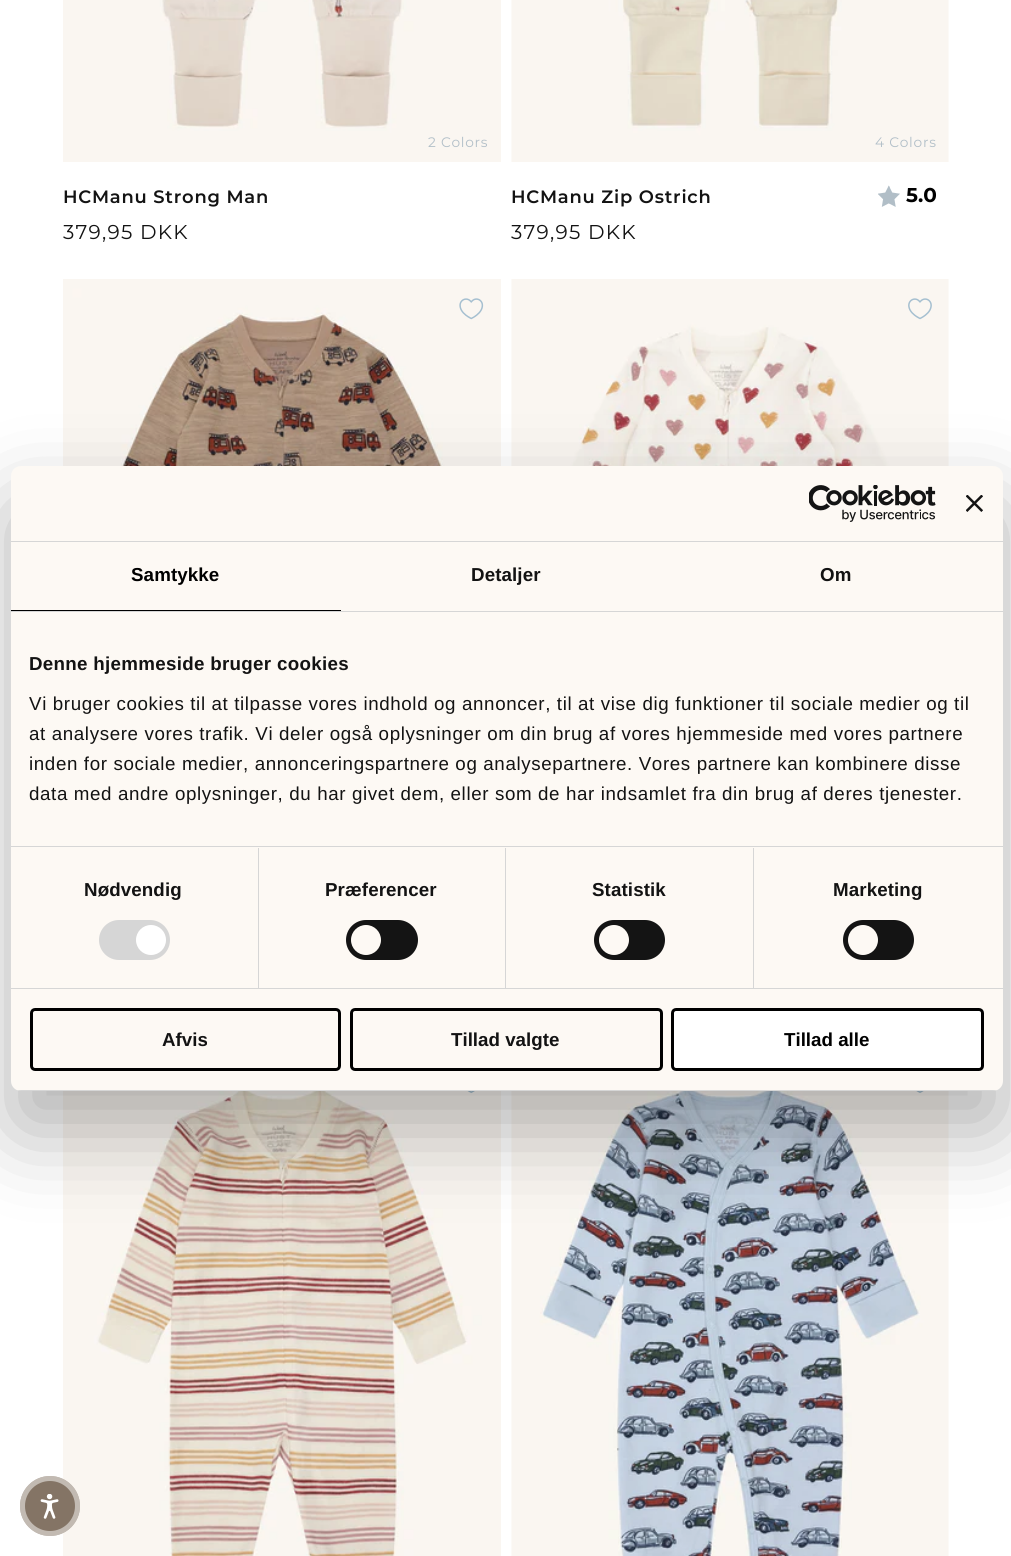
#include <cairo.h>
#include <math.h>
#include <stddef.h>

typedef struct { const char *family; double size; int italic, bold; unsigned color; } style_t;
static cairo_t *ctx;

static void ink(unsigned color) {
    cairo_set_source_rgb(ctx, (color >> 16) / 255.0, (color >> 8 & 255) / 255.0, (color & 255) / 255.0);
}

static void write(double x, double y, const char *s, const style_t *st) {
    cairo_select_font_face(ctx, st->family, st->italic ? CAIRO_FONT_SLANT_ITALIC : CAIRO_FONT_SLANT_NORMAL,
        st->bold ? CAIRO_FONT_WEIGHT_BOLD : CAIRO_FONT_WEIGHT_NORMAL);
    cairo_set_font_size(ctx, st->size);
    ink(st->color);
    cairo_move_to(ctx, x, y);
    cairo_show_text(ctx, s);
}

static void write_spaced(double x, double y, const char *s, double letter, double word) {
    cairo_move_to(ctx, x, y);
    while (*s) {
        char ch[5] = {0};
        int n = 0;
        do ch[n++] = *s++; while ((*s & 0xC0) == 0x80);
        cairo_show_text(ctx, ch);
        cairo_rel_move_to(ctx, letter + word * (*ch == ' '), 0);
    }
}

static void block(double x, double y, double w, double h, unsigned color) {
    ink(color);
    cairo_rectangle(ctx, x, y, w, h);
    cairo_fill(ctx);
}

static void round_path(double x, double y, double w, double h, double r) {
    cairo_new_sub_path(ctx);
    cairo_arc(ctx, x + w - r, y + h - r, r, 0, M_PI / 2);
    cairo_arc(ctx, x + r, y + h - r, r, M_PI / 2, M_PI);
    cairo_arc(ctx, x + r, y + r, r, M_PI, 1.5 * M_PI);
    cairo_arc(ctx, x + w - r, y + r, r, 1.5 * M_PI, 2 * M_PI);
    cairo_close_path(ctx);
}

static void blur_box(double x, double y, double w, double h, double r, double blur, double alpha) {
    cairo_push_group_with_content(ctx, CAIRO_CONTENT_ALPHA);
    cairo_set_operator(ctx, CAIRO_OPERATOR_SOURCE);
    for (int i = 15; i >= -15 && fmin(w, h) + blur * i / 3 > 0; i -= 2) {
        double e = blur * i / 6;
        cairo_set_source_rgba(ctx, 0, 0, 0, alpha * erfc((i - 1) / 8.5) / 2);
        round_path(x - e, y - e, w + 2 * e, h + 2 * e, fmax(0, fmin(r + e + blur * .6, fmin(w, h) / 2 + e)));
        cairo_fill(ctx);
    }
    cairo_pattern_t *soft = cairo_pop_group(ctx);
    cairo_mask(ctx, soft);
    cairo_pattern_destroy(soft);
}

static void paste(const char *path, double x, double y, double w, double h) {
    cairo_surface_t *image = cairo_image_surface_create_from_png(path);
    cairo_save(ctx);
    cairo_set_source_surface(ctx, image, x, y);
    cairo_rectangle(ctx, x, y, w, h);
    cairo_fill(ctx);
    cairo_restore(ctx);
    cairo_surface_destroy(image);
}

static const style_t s1 = {"Montserrat", 20, 0, 1, 0x000000};
static const style_t s2 = {"Liberation Sans", 18.75, 0, 1, 0x131313};
static const style_t s3 = {"Liberation Sans", 18.75, 0, 1, 0x000000};

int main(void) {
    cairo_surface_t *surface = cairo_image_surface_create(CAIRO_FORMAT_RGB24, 1011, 1556);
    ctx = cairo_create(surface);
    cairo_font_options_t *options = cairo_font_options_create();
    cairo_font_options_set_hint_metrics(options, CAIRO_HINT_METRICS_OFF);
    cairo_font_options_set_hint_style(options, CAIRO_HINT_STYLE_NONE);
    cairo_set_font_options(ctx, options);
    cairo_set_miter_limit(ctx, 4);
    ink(0xffffff);
    cairo_paint(ctx);
    paste("pic1.png", 63, 0, 438, 162);
    cairo_select_font_face(ctx, "Montserrat", CAIRO_FONT_SLANT_NORMAL, CAIRO_FONT_WEIGHT_NORMAL);
    cairo_set_font_size(ctx, 13.75);
    ink(0xb2bfc8);
    write_spaced(428, 147, "2 Colors", 0.75, 0);
    cairo_select_font_face(ctx, "Montserrat SemiBold", CAIRO_FONT_SLANT_NORMAL, CAIRO_FONT_WEIGHT_NORMAL);
    cairo_set_font_size(ctx, 17.9);
    ink(0x131313);
    write_spaced(63, 203, "HCManu Strong Man", 0.8, 0);
    cairo_select_font_face(ctx, "Montserrat", CAIRO_FONT_SLANT_NORMAL, CAIRO_FONT_WEIGHT_NORMAL);
    cairo_set_font_size(ctx, 20);
    write_spaced(63, 239, "379,95 DKK", 1.25, 0);
    paste("pic2.png", 511, 0, 438, 162);
    cairo_set_font_size(ctx, 13.75);
    ink(0xb2bfc8);
    write_spaced(875, 147, "4 Colors", 0.75, 0);
    cairo_select_font_face(ctx, "Montserrat SemiBold", CAIRO_FONT_SLANT_NORMAL, CAIRO_FONT_WEIGHT_NORMAL);
    cairo_set_font_size(ctx, 17.9);
    ink(0x131313);
    write_spaced(511, 203, "HCManu Zip Ostrich", 0.8, 0);
    paste("pic3.png", 878, 185, 22, 22);
    write(906, 202, "5.0", &s1);
    cairo_select_font_face(ctx, "Montserrat", CAIRO_FONT_SLANT_NORMAL, CAIRO_FONT_WEIGHT_NORMAL);
    ink(0x131313);
    write_spaced(511, 239, "379,95 DKK", 1.25, 0);
    paste("pic4.png", 63, 279, 438, 187);
    paste("pic5.png", 459, 298, 25, 22);
    paste("pic6.png", 511, 279, 438, 187);
    paste("pic7.png", 908, 298, 24, 22);
    paste("pic8.png", 63, 1091, 438, 465);
    paste("pic9.png", 467, 1091, 8, 2);
    paste("pic10.png", 511, 1091, 438, 465);
    paste("pic11.png", 916, 1091, 8, 2);
    ink(0x000000);
    blur_box(11, 506, 992, 625, 10, 42.5, 0.3);
    ink(0xfdf9f4);
    round_path(11, 466, 992, 625, 10);
    cairo_fill(ctx);
    block(11, 541, 992, 1, 0xd6d6d6);
    paste("pic12.png", 809, 485, 127, 37);
    paste("pic13.png", 966, 495, 17, 17);
    block(11, 611, 992, 1, 0xd6d6d6);
    block(11, 610, 330, 1, 0x000000);
    cairo_select_font_face(ctx, "Liberation Sans", CAIRO_FONT_SLANT_NORMAL, CAIRO_FONT_WEIGHT_BOLD);
    cairo_set_font_size(ctx, 18.75);
    write_spaced(131, 581, "Samtykke", 0.1, 0);
    ink(0x131313);
    write_spaced(471, 581, "Detaljer", 0.1, 0);
    write_spaced(820, 581, "Om", 0.1, 0);
    block(11, 846, 992, 1, 0xd6d6d6);
    ink(0x131313);
    write_spaced(29, 670, "Denne hjemmeside bruger cookies", 0.3, 0);
    cairo_select_font_face(ctx, "Liberation Sans", CAIRO_FONT_SLANT_NORMAL, CAIRO_FONT_WEIGHT_NORMAL);
    write_spaced(29, 710, "Vi bruger cookies til at tilpasse vores indhold og annoncer, til at vise dig funktioner til sociale medier og til", 0.62, 0);
    write_spaced(29, 740, "at analysere vores trafik. Vi deler også oplysninger om din brug af vores hjemmeside med vores partnere", 0.62, 0);
    write_spaced(29, 770, "inden for sociale medier, annonceringspartnere og analysepartnere. Vores partnere kan kombinere disse", 0.62, 0);
    write_spaced(29, 800, "data med andre oplysninger, du har givet dem, eller som de har indsamlet fra din brug af deres tjenester.", 0.62, 0);
    block(11, 988, 992, 1, 0xd6d6d6);
    block(258, 848, 1, 140, 0xd6d6d6);
    cairo_select_font_face(ctx, "Liberation Sans", CAIRO_FONT_SLANT_NORMAL, CAIRO_FONT_WEIGHT_BOLD);
    ink(0x131313);
    write_spaced(84, 896, "Nødvendig", 0.1, 0);
    ink(0xd6d6d6);
    round_path(99, 920, 71, 40, 20);
    cairo_fill(ctx);
    ink(0xffffff);
    cairo_arc(ctx, 151, 940, 15, 0, 2 * M_PI);
    cairo_fill(ctx);
    block(505, 848, 1, 140, 0xd6d6d6);
    ink(0x131313);
    write_spaced(325, 896, "Præferencer", 0.1, 0);
    ink(0x141414);
    round_path(346, 920, 72, 40, 20);
    cairo_fill(ctx);
    ink(0xfdf9f4);
    cairo_arc(ctx, 366, 940, 15, 0, 2 * M_PI);
    cairo_fill(ctx);
    block(753, 848, 1, 140, 0xd6d6d6);
    ink(0x131313);
    write_spaced(592, 896, "Statistik", 0.1, 0);
    ink(0x141414);
    round_path(594, 920, 71, 40, 20);
    cairo_fill(ctx);
    ink(0xfdf9f4);
    cairo_arc(ctx, 614, 940, 15, 0, 2 * M_PI);
    cairo_fill(ctx);
    ink(0x131313);
    write_spaced(833, 896, "Marketing", 0.1, 0);
    ink(0x141414);
    round_path(843, 920, 71, 40, 20);
    cairo_fill(ctx);
    ink(0xfdf9f4);
    cairo_arc(ctx, 863, 940, 15, 0, 2 * M_PI);
    cairo_fill(ctx);
    cairo_save(ctx);
    round_path(11, 466, 992, 625, 10);
    cairo_clip(ctx);
    block(11, 1090, 992, 1, 0xd6d6d6);
    cairo_restore(ctx);
    round_path(31.5, 1009.5, 308, 60, 3.5);
    ink(0x000000);
    cairo_set_line_width(ctx, 3);
    cairo_stroke(ctx);
    write(162, 1046, "Afvis", &s2);
    round_path(351.5, 1009.5, 310, 60, 3.5);
    ink(0x000000);
    cairo_stroke(ctx);
    write(451, 1046, "Tillad valgte", &s2);
    ink(0xffffff);
    round_path(672.5, 1009.5, 310, 60, 3.5);
    cairo_fill_preserve(ctx);
    ink(0x000000);
    cairo_stroke(ctx);
    write(784, 1046, "Tillad alle", &s3);
    ink(0x847465);
    cairo_new_path(ctx);
    cairo_arc(ctx, 50, 1506, 30, 0, 2 * M_PI);
    cairo_fill(ctx);
    cairo_arc(ctx, 50, 1506, 27.5, 0, 2 * M_PI);
    cairo_set_source_rgba(ctx, 1, 1, 1, 0.5);
    cairo_set_line_width(ctx, 5);
    cairo_stroke(ctx);
    paste("pic14.png", 40, 1494, 19, 25);
    cairo_surface_write_to_png(surface, "screenshot.png");
    cairo_font_options_destroy(options);
    cairo_destroy(ctx);
    cairo_surface_destroy(surface);
    return 0;
}
